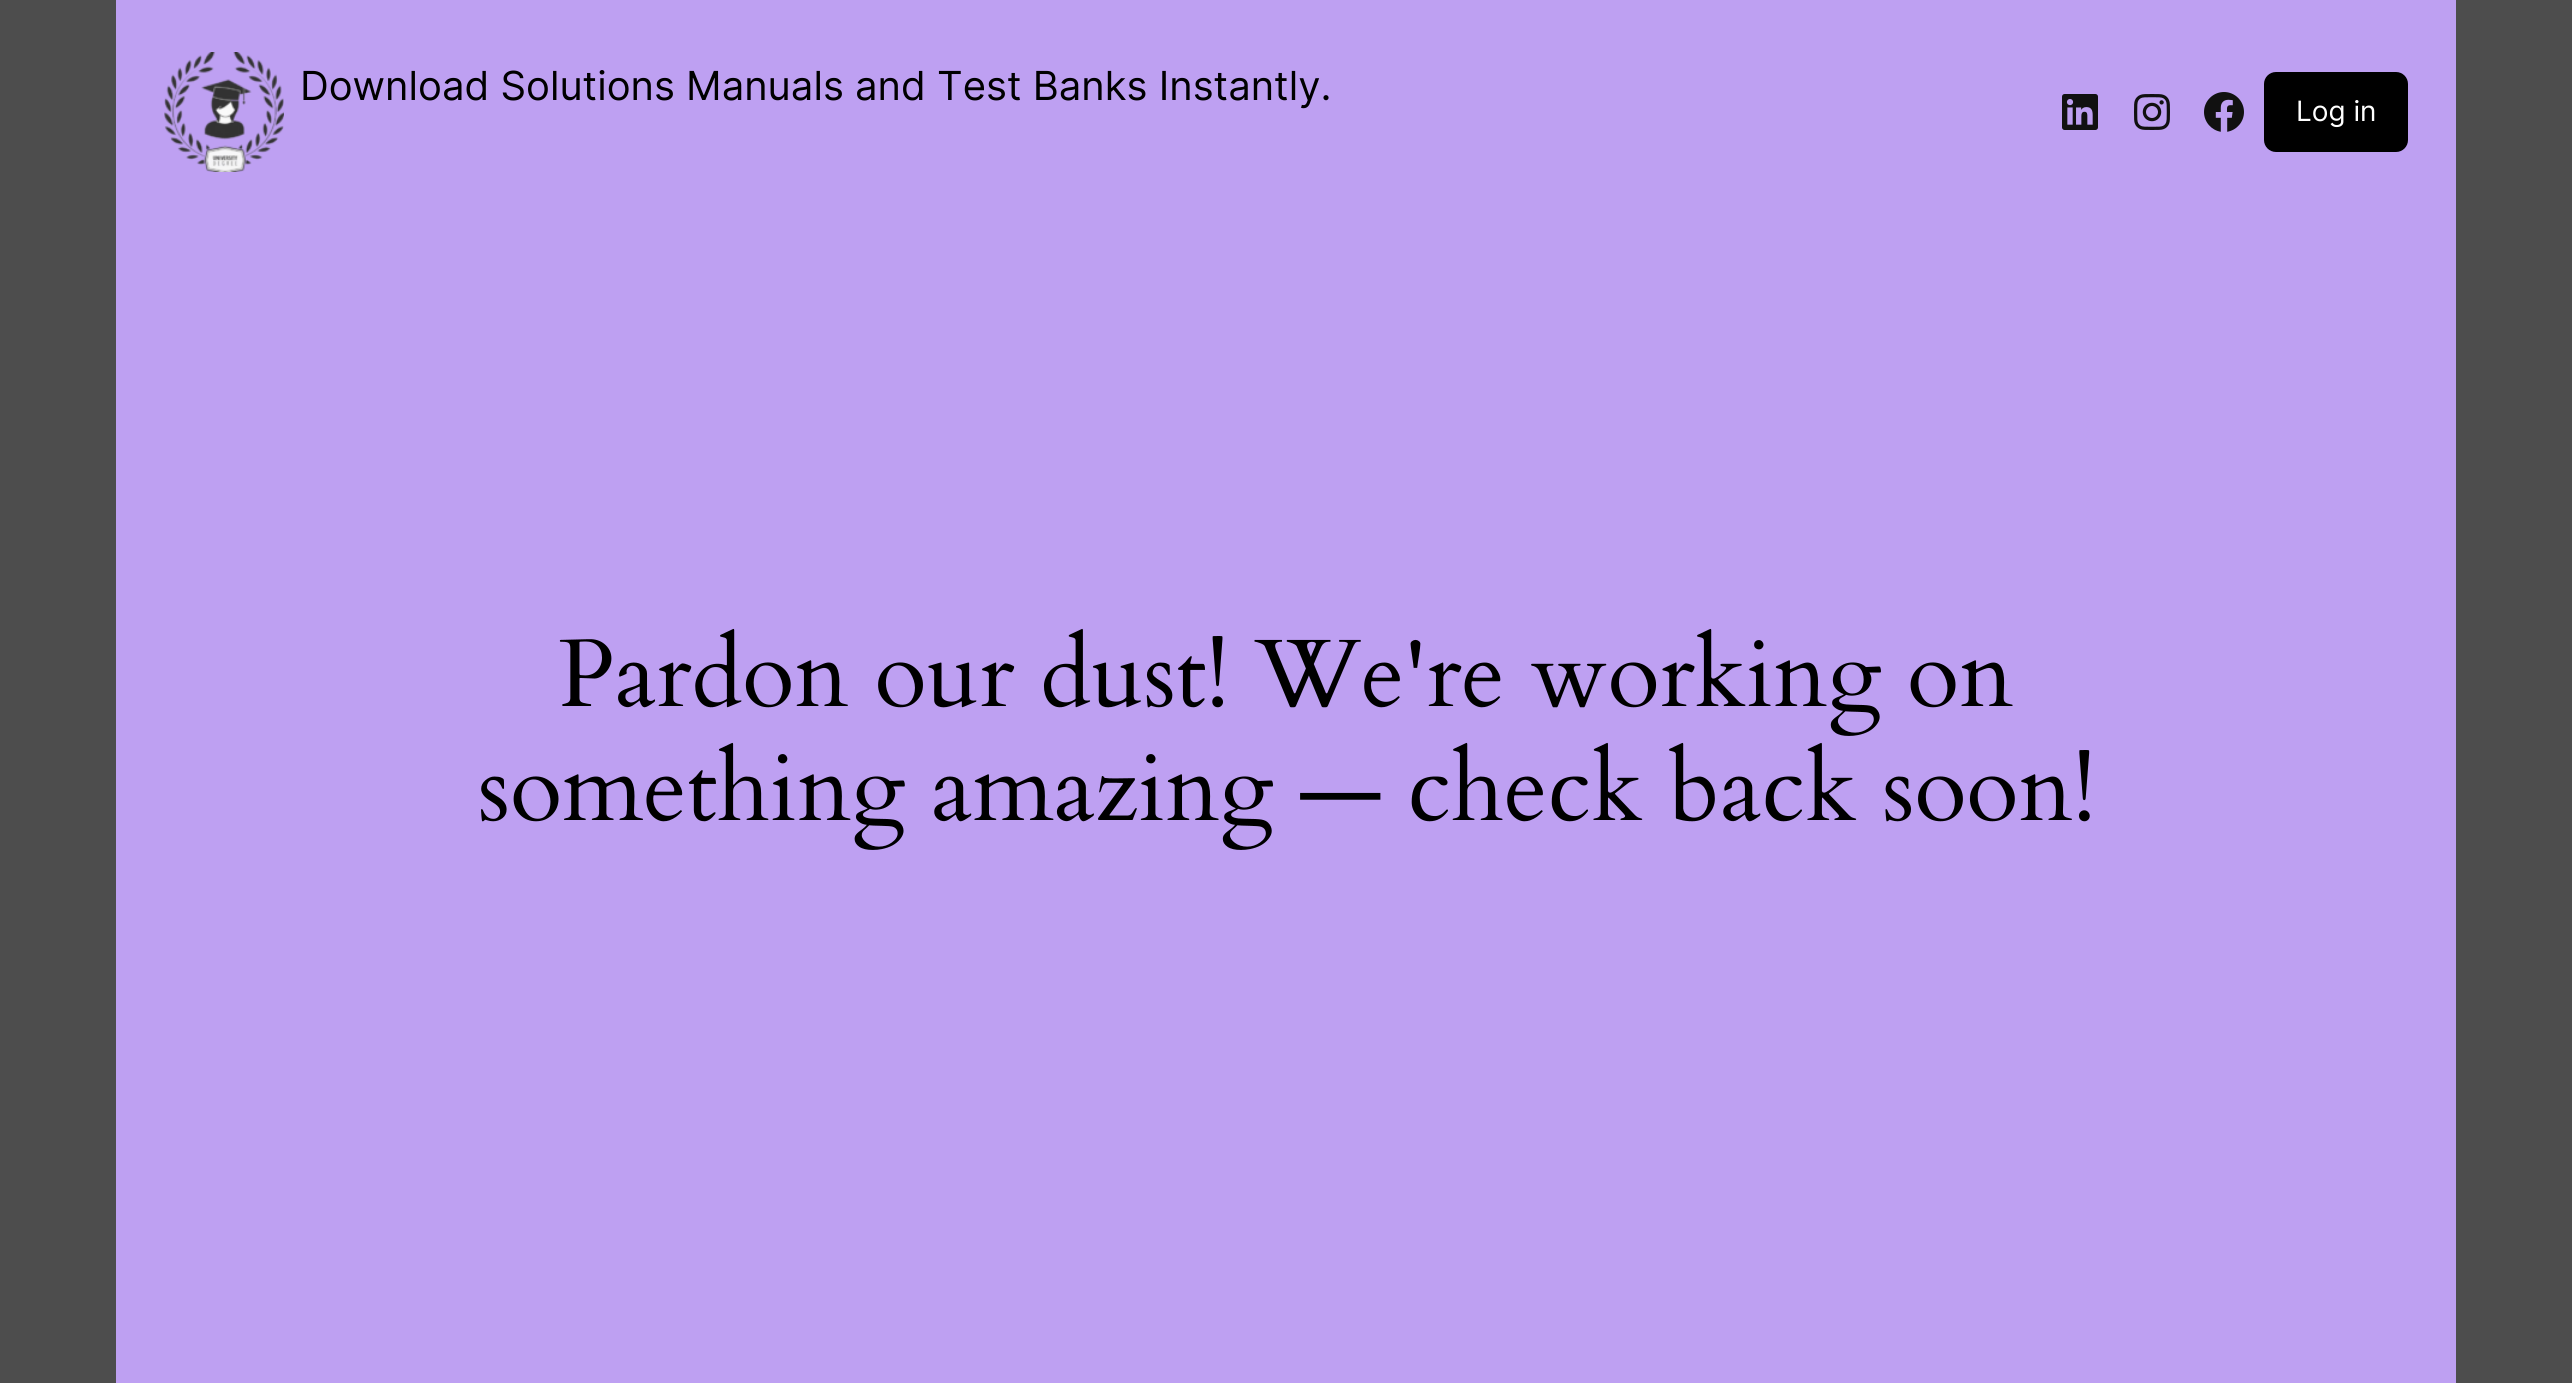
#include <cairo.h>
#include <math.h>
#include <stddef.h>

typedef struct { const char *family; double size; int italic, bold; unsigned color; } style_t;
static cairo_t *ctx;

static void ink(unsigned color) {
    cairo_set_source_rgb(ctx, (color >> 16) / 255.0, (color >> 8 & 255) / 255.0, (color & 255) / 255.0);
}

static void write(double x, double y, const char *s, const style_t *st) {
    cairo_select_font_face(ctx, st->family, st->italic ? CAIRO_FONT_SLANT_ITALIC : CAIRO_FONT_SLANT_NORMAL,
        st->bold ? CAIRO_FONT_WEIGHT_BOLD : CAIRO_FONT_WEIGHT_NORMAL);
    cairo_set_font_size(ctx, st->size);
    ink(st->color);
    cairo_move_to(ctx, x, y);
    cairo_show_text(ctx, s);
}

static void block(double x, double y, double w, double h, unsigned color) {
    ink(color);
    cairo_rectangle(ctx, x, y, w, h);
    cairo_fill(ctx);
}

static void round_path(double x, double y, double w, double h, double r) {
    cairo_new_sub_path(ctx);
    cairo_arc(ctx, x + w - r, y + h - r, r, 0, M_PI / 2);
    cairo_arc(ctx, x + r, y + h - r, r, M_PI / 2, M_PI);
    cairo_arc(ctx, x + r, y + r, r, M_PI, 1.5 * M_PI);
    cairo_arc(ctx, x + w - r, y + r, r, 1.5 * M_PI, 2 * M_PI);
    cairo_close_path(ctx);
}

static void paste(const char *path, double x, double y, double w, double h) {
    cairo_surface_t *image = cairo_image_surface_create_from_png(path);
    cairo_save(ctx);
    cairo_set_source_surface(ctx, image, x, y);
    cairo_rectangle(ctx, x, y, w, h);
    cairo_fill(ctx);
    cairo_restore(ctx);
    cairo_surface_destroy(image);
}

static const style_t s1 = {"Inter", 40, 0, 0, 0x000000};
static const style_t s2 = {"Inter", 28, 0, 0, 0xffffff};

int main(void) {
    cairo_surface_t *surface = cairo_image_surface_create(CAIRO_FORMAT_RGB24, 2572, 1383);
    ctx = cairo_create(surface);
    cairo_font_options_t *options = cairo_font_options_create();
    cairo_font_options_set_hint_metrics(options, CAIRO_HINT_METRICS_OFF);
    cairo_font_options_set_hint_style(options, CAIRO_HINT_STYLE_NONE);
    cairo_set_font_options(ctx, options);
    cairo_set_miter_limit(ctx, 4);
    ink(0x4d4d4d);
    cairo_paint(ctx);
    block(116, 0, 2340, 1383, 0xbea0f2);
    paste("pic1.png", 164, 52, 120, 120);
    write(300, 100, "Download Solutions Manuals and Test Banks Instantly.", &s1);
    paste("pic2.png", 2062, 94, 36, 36);
    paste("pic3.png", 2134, 94, 36, 36);
    paste("pic4.png", 2204, 92, 40, 40);
    round_path(2264, 72, 144, 80, 12);
    cairo_fill(ctx);
    write(2296, 121, "Log in", &s2);
    paste("pic5.png", 559, 628, 1454, 108);
    paste("pic6.png", 481, 742, 1609, 108);
    cairo_surface_write_to_png(surface, "screenshot.png");
    cairo_font_options_destroy(options);
    cairo_destroy(ctx);
    cairo_surface_destroy(surface);
    return 0;
}
